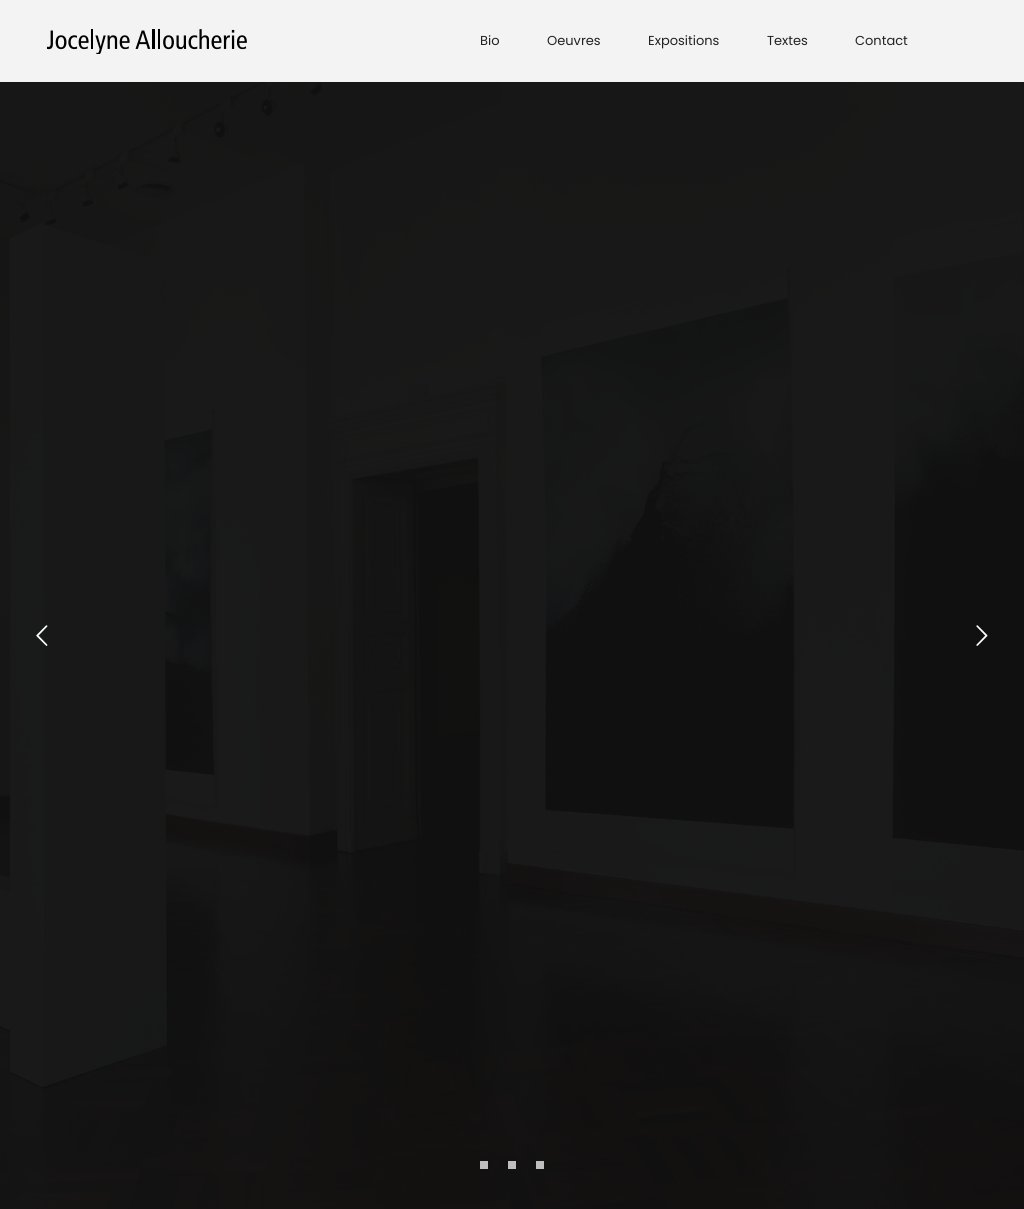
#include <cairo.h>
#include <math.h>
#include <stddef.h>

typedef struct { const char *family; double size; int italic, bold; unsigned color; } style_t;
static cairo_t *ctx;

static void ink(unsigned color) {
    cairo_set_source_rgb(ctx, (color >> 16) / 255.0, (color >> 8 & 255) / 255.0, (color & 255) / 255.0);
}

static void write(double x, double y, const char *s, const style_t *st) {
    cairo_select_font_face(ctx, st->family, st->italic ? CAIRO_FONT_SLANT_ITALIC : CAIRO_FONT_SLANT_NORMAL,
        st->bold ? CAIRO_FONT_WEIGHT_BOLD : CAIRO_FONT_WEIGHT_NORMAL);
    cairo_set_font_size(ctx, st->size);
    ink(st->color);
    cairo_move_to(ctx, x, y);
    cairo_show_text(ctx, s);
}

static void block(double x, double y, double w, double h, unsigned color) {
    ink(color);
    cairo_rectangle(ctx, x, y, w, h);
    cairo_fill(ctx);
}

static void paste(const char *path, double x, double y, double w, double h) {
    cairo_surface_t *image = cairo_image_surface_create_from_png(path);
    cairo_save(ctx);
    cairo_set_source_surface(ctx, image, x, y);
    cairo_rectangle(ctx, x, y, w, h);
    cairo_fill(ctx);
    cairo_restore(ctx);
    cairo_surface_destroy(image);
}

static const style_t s1 = {"Poppins", 13, 0, 0, 0x222222};

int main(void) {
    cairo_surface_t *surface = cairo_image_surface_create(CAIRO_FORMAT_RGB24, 1024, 1209);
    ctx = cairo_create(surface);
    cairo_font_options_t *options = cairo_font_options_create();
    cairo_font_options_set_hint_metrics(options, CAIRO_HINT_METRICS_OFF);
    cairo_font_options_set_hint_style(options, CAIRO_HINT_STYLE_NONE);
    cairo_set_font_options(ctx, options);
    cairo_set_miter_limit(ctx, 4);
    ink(0x111111);
    cairo_paint(ctx);
    block(0, 0, 1024, 82, 0xf3f3f3);
    paste("pic1.png", 47, 29, 200, 25);
    write(480, 45, "Bio", &s1);
    write(547, 45, "Oeuvres", &s1);
    write(648, 45, "Expositions", &s1);
    write(767, 45, "Textes", &s1);
    write(855, 45, "Contact", &s1);
    paste("pic2.png", 0, 82, 1024, 1127);
    paste("pic3.png", 36, 625, 12, 21);
    paste("pic4.png", 976, 625, 12, 21);
    block(480, 1161, 8, 8, 0xbebebe);
    block(508, 1161, 8, 8, 0xbebebe);
    block(536, 1161, 8, 8, 0xbebebe);
    cairo_surface_write_to_png(surface, "screenshot.png");
    cairo_font_options_destroy(options);
    cairo_destroy(ctx);
    cairo_surface_destroy(surface);
    return 0;
}
